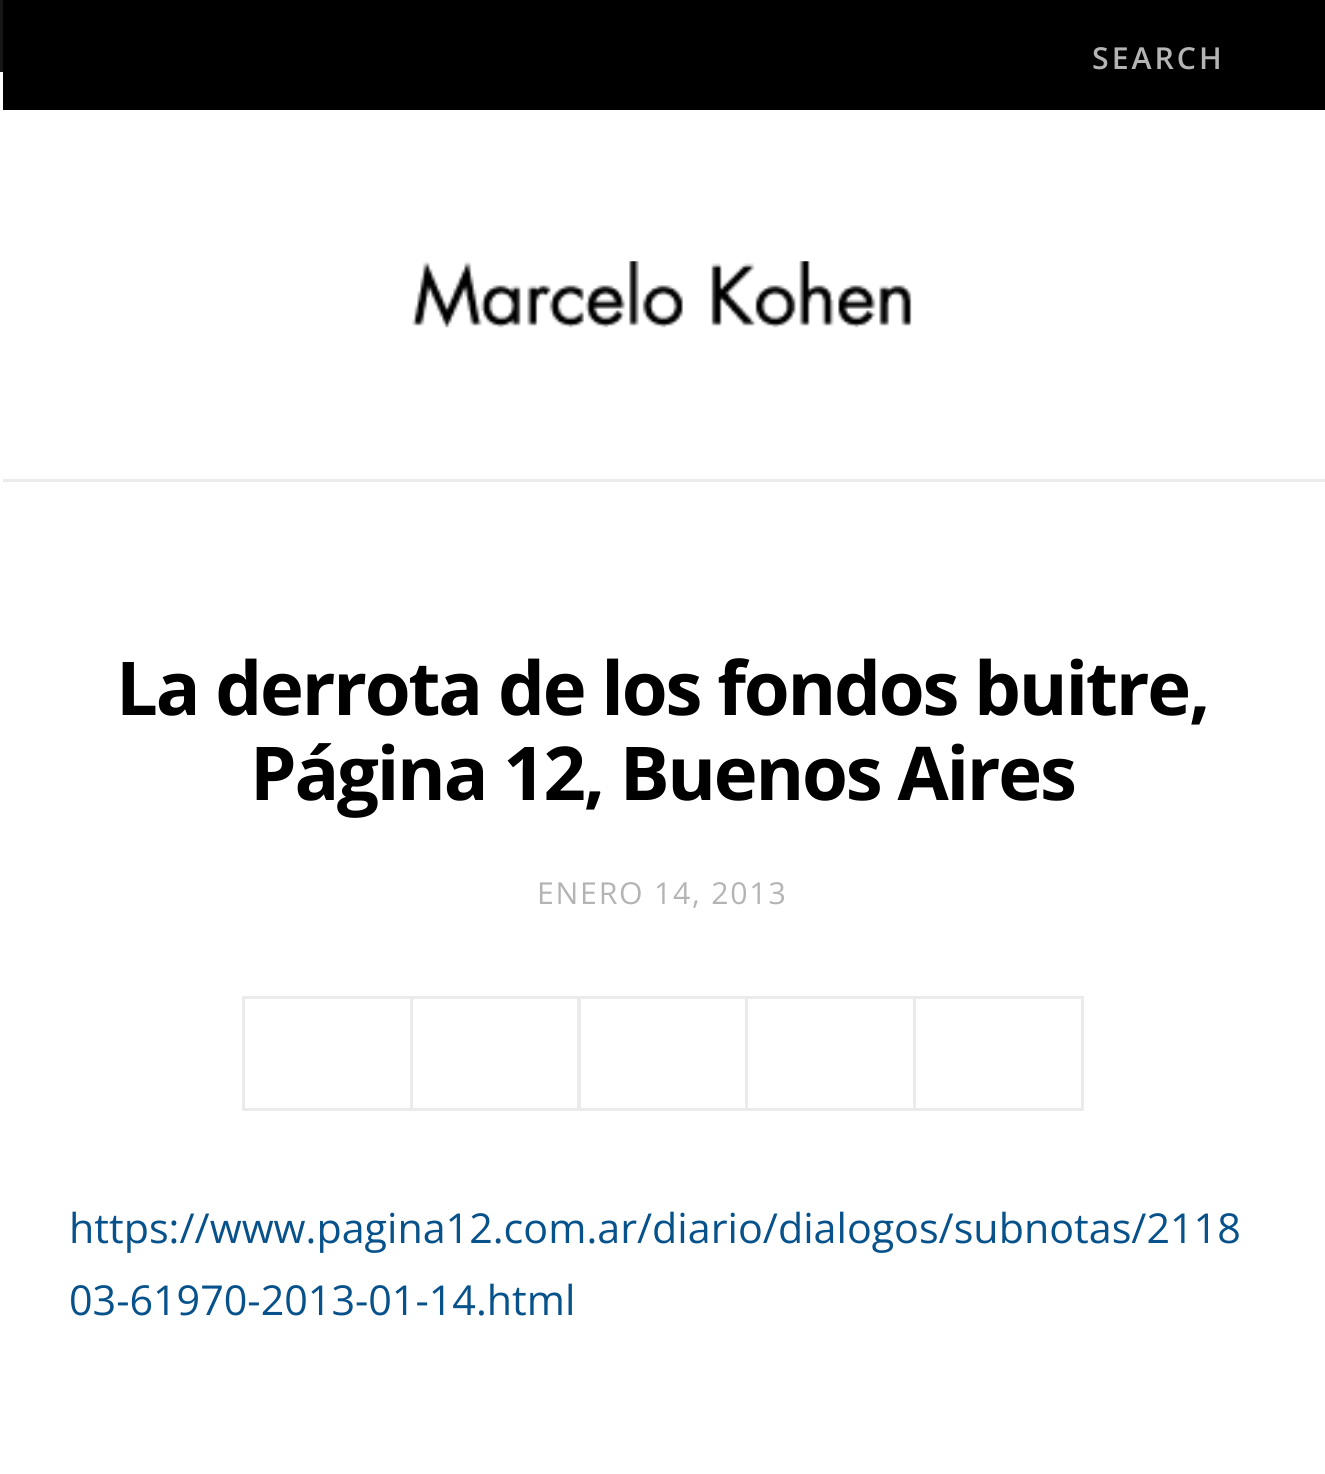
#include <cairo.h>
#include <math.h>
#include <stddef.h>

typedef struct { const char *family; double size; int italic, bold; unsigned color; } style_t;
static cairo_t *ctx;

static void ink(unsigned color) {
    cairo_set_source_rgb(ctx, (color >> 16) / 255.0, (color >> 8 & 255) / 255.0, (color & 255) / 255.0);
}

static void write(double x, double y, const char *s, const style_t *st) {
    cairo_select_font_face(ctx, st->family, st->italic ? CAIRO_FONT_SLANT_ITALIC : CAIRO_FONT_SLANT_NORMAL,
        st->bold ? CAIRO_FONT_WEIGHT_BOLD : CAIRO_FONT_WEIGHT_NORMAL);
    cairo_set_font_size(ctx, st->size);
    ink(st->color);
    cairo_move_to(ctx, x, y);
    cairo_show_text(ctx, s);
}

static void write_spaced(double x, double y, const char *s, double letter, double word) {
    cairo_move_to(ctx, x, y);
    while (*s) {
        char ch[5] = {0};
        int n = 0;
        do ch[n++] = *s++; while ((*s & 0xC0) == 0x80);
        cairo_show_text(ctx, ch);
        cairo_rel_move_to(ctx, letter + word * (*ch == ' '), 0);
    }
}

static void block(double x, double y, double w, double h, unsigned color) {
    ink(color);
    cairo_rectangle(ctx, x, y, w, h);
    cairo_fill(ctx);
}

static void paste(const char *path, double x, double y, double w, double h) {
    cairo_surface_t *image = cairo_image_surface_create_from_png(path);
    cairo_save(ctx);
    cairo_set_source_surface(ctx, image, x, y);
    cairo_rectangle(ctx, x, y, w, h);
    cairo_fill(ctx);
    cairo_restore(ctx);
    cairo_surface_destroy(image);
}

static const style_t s1 = {"Open Sans", 41.25, 0, 0, 0x08528b};

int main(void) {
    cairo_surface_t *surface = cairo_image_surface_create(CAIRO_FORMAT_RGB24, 1325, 1474);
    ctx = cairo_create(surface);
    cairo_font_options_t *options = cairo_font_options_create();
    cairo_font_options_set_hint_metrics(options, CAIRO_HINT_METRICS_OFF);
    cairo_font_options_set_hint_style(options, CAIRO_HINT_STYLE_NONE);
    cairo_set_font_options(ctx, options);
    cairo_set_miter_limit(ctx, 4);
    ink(0xffffff);
    cairo_paint(ctx);
    block(0, 479, 1325, 3, 0xebebeb);
    block(0, 479, 3, 3, 0xffffff);
    block(0, 0, 3, 72, 0x161616);
    block(3, 0, 1322, 110, 0x000000);
    cairo_select_font_face(ctx, "Open Sans SemiBold", CAIRO_FONT_SLANT_NORMAL, CAIRO_FONT_WEIGHT_NORMAL);
    cairo_set_font_size(ctx, 30.25);
    ink(0xb4b4b4);
    write_spaced(1092, 69, "SEARCH", 3, 0);
    paste("pic1.png", 412, 261, 500, 67);
    cairo_select_font_face(ctx, "Open Sans", CAIRO_FONT_SLANT_NORMAL, CAIRO_FONT_WEIGHT_BOLD);
    cairo_set_font_size(ctx, 74.25);
    ink(0x000000);
    write_spaced(116, 715, "La derrota de los fondos buitre,", -2.25, 0);
    write_spaced(250, 800, "Página 12, Buenos Aires", -2.25, 0);
    cairo_select_font_face(ctx, "Open Sans", CAIRO_FONT_SLANT_NORMAL, CAIRO_FONT_WEIGHT_NORMAL);
    cairo_set_font_size(ctx, 30.25);
    ink(0xb4b4b4);
    write_spaced(537, 904, "ENERO 14, 2013", 1.75, 0);
    cairo_rectangle(ctx, 243.5, 997.5, 168, 112);
    ink(0xebebeb);
    cairo_set_line_width(ctx, 3);
    cairo_stroke(ctx);
    cairo_rectangle(ctx, 411.5, 997.5, 167, 112);
    cairo_stroke(ctx);
    cairo_rectangle(ctx, 579.5, 997.5, 167, 112);
    cairo_stroke(ctx);
    cairo_rectangle(ctx, 746.5, 997.5, 168, 112);
    cairo_stroke(ctx);
    cairo_rectangle(ctx, 914.5, 997.5, 168, 112);
    cairo_stroke(ctx);
    write(69, 1243, "https://www.pagina12.com.ar/diario/dialogos/subnotas/2118", &s1);
    write(69, 1315, "03-61970-2013-01-14.html", &s1);
    cairo_surface_write_to_png(surface, "screenshot.png");
    cairo_font_options_destroy(options);
    cairo_destroy(ctx);
    cairo_surface_destroy(surface);
    return 0;
}
